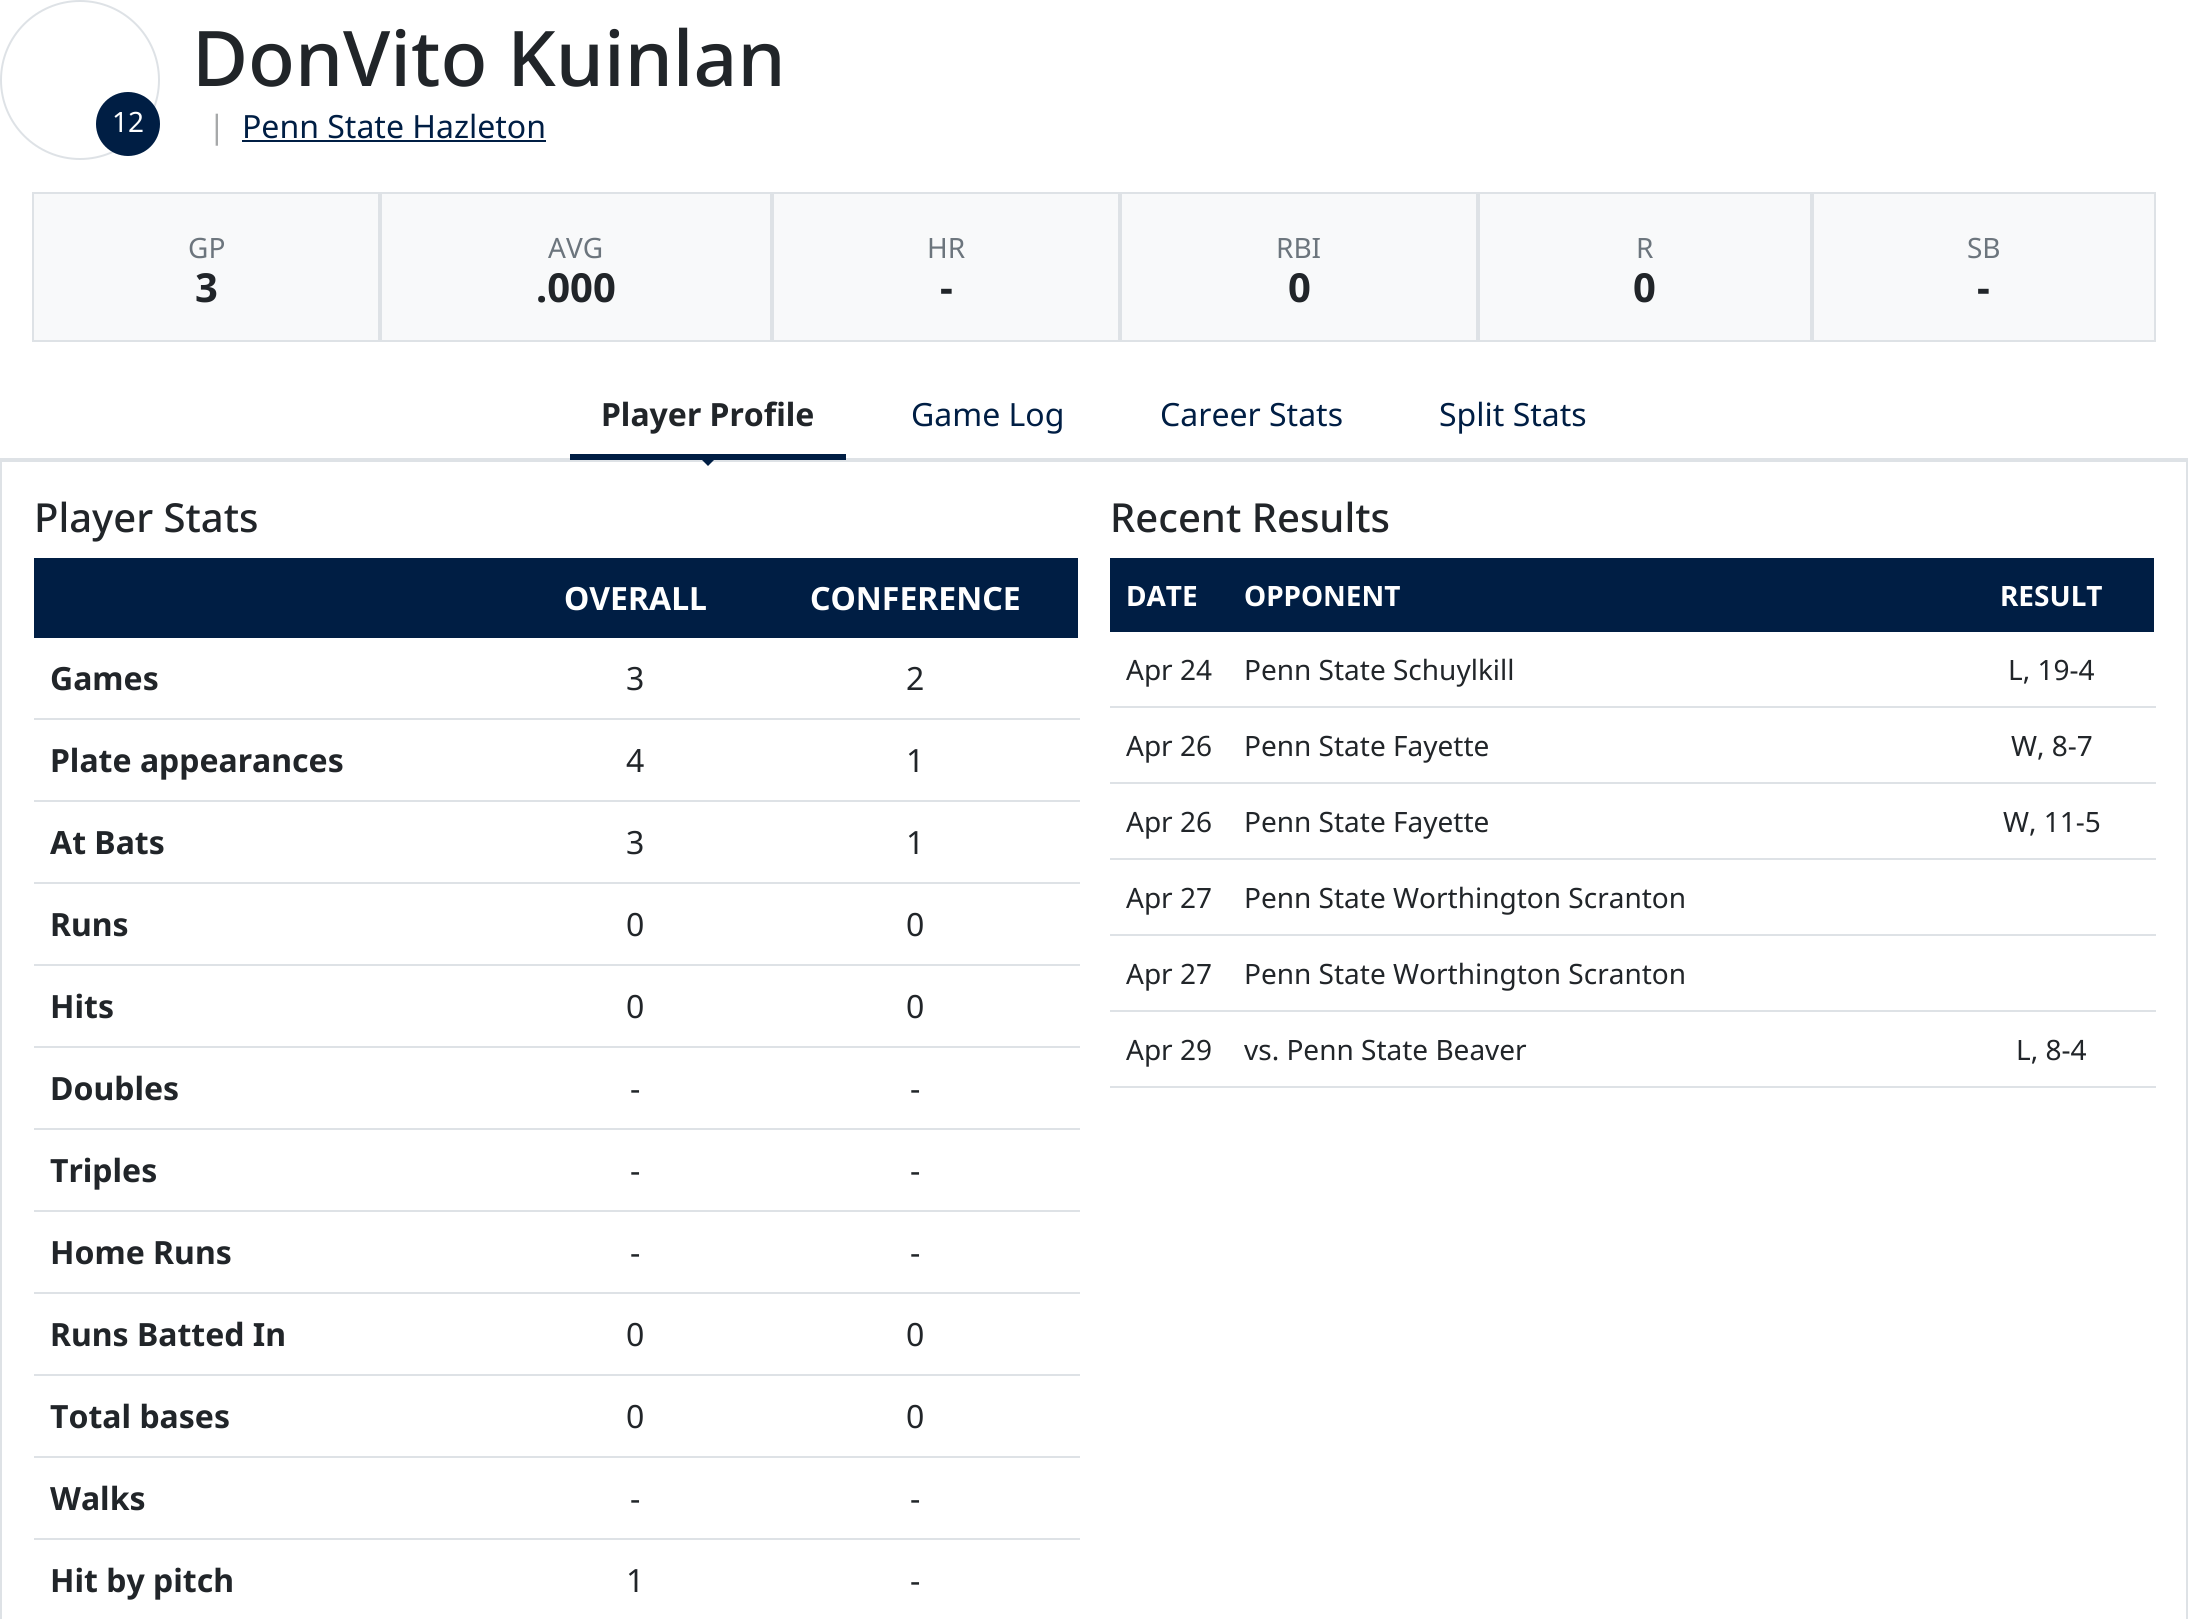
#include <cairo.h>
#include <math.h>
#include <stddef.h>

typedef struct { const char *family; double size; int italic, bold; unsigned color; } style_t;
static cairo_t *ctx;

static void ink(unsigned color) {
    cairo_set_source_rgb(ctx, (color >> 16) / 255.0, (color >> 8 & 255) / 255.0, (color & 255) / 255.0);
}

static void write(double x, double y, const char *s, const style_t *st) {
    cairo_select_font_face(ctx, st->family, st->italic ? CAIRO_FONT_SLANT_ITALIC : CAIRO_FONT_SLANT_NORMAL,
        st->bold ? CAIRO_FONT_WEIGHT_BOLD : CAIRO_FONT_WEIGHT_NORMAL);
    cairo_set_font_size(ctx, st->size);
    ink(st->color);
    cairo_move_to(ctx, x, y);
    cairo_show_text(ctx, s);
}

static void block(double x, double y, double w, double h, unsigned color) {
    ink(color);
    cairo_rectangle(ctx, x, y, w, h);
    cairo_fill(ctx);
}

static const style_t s1 = {"Noto Sans", 28, 0, 0, 0xffffff};
static const style_t s2 = {"Noto Sans Medium", 76.75, 0, 0, 0x212529};
static const style_t s3 = {"Noto Sans", 32, 0, 0, 0xa6a8a9};
static const style_t s4 = {"Noto Sans", 32, 0, 0, 0x001e44};
static const style_t s5 = {"Noto Sans", 28, 0, 0, 0x6c757d};
static const style_t s6 = {"Noto Sans", 40, 0, 1, 0x212529};
static const style_t s7 = {"Noto Sans", 32, 0, 1, 0x212529};
static const style_t s8 = {"Noto Sans Medium", 40, 0, 0, 0x212529};
static const style_t s9 = {"Noto Sans", 32, 0, 1, 0xffffff};
static const style_t s10 = {"Noto Sans", 32, 0, 0, 0x212529};
static const style_t s11 = {"Noto Sans", 28, 0, 1, 0xffffff};
static const style_t s12 = {"Noto Sans", 28, 0, 0, 0x212529};

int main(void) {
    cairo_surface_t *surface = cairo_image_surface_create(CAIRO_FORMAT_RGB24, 2188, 1619);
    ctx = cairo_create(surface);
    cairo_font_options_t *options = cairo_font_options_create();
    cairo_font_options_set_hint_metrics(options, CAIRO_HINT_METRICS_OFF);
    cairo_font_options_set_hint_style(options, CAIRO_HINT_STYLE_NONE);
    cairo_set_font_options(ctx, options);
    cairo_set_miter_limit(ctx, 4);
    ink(0xffffff);
    cairo_paint(ctx);
    cairo_arc(ctx, 80, 80, 79, 0, 2 * M_PI);
    ink(0xdee2e6);
    cairo_stroke(ctx);
    ink(0x001e44);
    cairo_arc(ctx, 128, 124, 32, 0, 2 * M_PI);
    cairo_fill(ctx);
    write(112, 132, "12", &s1);
    write(192, 86, "DonVito Kuinlan", &s2);
    write(208, 138, "|", &s3);
    write(242, 138, "Penn State Hazleton", &s4);
    block(242, 140, 304, 2, 0x001e44);
    block(34, 194, 2120, 146, 0xf8f9fa);
    cairo_rectangle(ctx, 33, 193, 346, 148);
    ink(0xdee2e6);
    cairo_stroke(ctx);
    write(188, 258, "GP", &s5);
    write(195, 302, "3", &s6);
    cairo_rectangle(ctx, 381, 193, 390, 148);
    ink(0xdee2e6);
    cairo_stroke(ctx);
    write(548, 258, "AVG", &s5);
    write(536, 302, ".000", &s6);
    cairo_rectangle(ctx, 773, 193, 346, 148);
    ink(0xdee2e6);
    cairo_stroke(ctx);
    write(927, 258, "HR", &s5);
    write(940, 302, "-", &s6);
    cairo_rectangle(ctx, 1121, 193, 356, 148);
    ink(0xdee2e6);
    cairo_stroke(ctx);
    write(1276, 258, "RBI", &s5);
    write(1288, 302, "0", &s6);
    cairo_rectangle(ctx, 1479, 193, 332, 148);
    ink(0xdee2e6);
    cairo_stroke(ctx);
    write(1636, 258, "R", &s5);
    write(1633, 302, "0", &s6);
    cairo_rectangle(ctx, 1813, 193, 342, 148);
    ink(0xdee2e6);
    cairo_stroke(ctx);
    write(1967, 258, "SB", &s5);
    write(1977, 302, "-", &s6);
    block(0, 458, 2188, 2, 0xdee2e6);
    block(570, 454, 276, 6, 0x001e44);
    write(601, 426, "Player Profile", &s7);
    cairo_rectangle(ctx, 1, 461, 2186, 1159);
    ink(0xdee2e6);
    cairo_stroke(ctx);
    ink(0x001e44);
    cairo_new_path(ctx);
    cairo_move_to(ctx, 696, 454);
    cairo_line_to(ctx, 720, 454);
    cairo_line_to(ctx, 708, 466);
    cairo_close_path(ctx);
    cairo_fill(ctx);
    write(911, 426, "Game Log", &s4);
    write(1160, 426, "Career Stats", &s4);
    write(1439, 426, "Split Stats", &s4);
    write(34, 532, "Player Stats", &s8);
    block(34, 558, 1044, 80, 0x001e44);
    write(564, 610, "OVERALL", &s9);
    write(810, 610, "CONFERENCE", &s9);
    write(50, 690, "Games", &s7);
    write(626, 690, "3", &s10);
    block(34, 718, 1046, 2, 0xdee2e6);
    write(906, 690, "2", &s10);
    write(50, 772, "Plate appearances", &s7);
    write(626, 772, "4", &s10);
    block(34, 800, 1046, 2, 0xdee2e6);
    write(906, 772, "1", &s10);
    write(50, 854, "At Bats", &s7);
    write(626, 854, "3", &s10);
    block(34, 882, 1046, 2, 0xdee2e6);
    write(906, 854, "1", &s10);
    write(50, 936, "Runs", &s7);
    write(626, 936, "0", &s10);
    block(34, 964, 1046, 2, 0xdee2e6);
    write(906, 936, "0", &s10);
    write(50, 1018, "Hits", &s7);
    write(626, 1018, "0", &s10);
    block(34, 1046, 1046, 2, 0xdee2e6);
    write(906, 1018, "0", &s10);
    write(50, 1100, "Doubles", &s7);
    write(630, 1100, "-", &s10);
    block(34, 1128, 1046, 2, 0xdee2e6);
    write(910, 1100, "-", &s10);
    write(50, 1182, "Triples", &s7);
    write(630, 1182, "-", &s10);
    block(34, 1210, 1046, 2, 0xdee2e6);
    write(910, 1182, "-", &s10);
    write(50, 1264, "Home Runs", &s7);
    write(630, 1264, "-", &s10);
    block(34, 1292, 1046, 2, 0xdee2e6);
    write(910, 1264, "-", &s10);
    write(50, 1346, "Runs Batted In", &s7);
    write(626, 1346, "0", &s10);
    block(34, 1374, 1046, 2, 0xdee2e6);
    write(906, 1346, "0", &s10);
    write(50, 1428, "Total bases", &s7);
    write(626, 1428, "0", &s10);
    block(34, 1456, 1046, 2, 0xdee2e6);
    write(906, 1428, "0", &s10);
    write(50, 1510, "Walks", &s7);
    write(630, 1510, "-", &s10);
    block(34, 1538, 1046, 2, 0xdee2e6);
    write(910, 1510, "-", &s10);
    write(50, 1592, "Hit by pitch", &s7);
    write(626, 1592, "1", &s10);
    write(910, 1592, "-", &s10);
    write(1110, 532, "Recent Results", &s8);
    block(1110, 558, 1044, 74, 0x001e44);
    write(1126, 606, "DATE", &s11);
    write(1244, 606, "OPPONENT", &s11);
    write(2000, 606, "RESULT", &s11);
    write(1126, 680, "Apr 24", &s12);
    write(1244, 680, "Penn State Schuylkill", &s12);
    block(1110, 706, 1046, 2, 0xdee2e6);
    write(2008, 680, "L, 19-4", &s12);
    write(1126, 756, "Apr 26", &s12);
    write(1244, 756, "Penn State Fayette", &s12);
    block(1110, 782, 1046, 2, 0xdee2e6);
    write(2011, 756, "W, 8-7", &s12);
    write(1126, 832, "Apr 26", &s12);
    write(1244, 832, "Penn State Fayette", &s12);
    block(1110, 858, 1046, 2, 0xdee2e6);
    write(2003, 832, "W, 11-5", &s12);
    write(1126, 908, "Apr 27", &s12);
    write(1244, 908, "Penn State Worthington Scranton", &s12);
    block(1110, 934, 1046, 2, 0xdee2e6);
    write(1126, 984, "Apr 27", &s12);
    write(1244, 984, "Penn State Worthington Scranton", &s12);
    block(1110, 1010, 1046, 2, 0xdee2e6);
    write(1126, 1060, "Apr 29", &s12);
    write(1244, 1060, "vs. Penn State Beaver", &s12);
    block(1110, 1086, 1046, 2, 0xdee2e6);
    write(2016, 1060, "L, 8-4", &s12);
    cairo_surface_write_to_png(surface, "screenshot.png");
    cairo_font_options_destroy(options);
    cairo_destroy(ctx);
    cairo_surface_destroy(surface);
    return 0;
}
